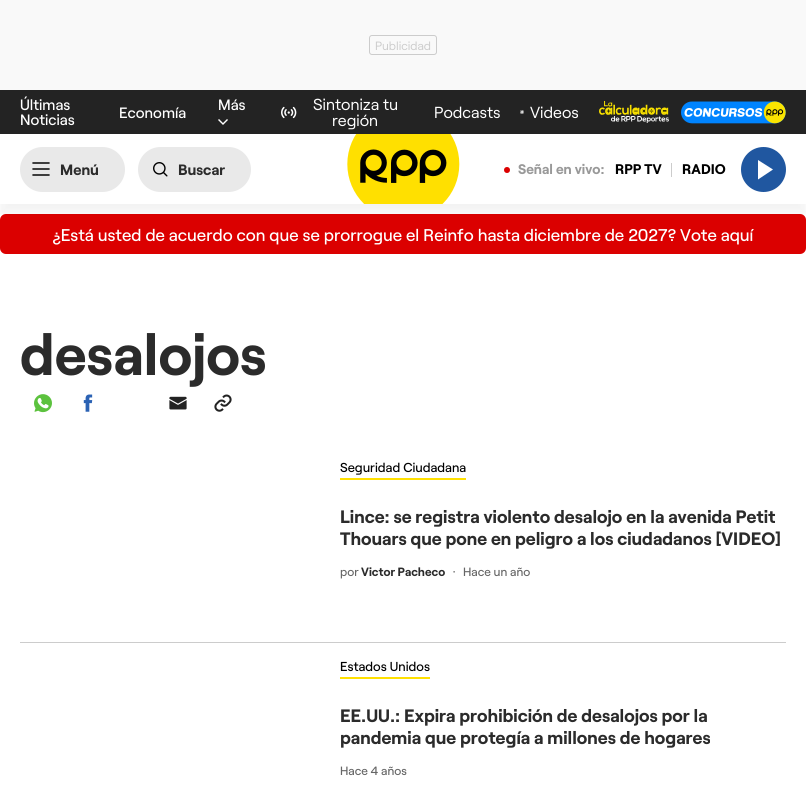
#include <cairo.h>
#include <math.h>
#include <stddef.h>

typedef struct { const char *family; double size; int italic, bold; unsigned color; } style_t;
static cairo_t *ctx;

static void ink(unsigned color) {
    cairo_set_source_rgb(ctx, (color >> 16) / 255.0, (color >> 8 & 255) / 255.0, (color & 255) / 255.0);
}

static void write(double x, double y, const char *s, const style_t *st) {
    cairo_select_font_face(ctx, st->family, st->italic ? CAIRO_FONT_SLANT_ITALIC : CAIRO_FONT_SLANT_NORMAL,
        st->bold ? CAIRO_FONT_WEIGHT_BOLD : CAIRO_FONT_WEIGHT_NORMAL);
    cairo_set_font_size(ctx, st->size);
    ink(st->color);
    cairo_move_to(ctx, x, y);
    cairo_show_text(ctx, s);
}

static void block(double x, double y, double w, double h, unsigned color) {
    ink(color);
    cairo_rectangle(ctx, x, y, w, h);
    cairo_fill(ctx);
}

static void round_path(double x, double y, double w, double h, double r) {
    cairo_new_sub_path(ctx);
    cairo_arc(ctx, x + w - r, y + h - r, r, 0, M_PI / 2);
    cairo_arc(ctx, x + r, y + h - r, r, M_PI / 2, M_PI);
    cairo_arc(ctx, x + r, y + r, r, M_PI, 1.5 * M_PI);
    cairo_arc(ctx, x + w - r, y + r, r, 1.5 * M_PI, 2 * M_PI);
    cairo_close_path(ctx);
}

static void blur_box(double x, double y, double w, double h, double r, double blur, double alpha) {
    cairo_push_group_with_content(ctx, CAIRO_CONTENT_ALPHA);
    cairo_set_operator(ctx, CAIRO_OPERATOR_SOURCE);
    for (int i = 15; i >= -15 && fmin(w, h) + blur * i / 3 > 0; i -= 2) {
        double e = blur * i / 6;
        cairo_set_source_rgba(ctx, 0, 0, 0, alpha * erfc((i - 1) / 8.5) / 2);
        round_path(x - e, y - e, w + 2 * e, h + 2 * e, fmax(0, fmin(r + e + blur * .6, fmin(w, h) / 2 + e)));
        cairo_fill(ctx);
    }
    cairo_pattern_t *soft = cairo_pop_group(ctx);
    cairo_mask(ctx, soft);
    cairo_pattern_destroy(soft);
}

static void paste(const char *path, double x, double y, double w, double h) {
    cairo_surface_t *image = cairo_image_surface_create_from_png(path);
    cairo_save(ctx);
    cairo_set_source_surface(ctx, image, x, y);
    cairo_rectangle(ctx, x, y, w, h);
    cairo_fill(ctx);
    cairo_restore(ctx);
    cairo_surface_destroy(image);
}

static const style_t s1 = {"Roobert", 12, 0, 0, 0xcccccc};
static const style_t s2 = {"Roobert Medium", 15, 0, 0, 0xffffff};
static const style_t s3 = {"Roobert", 16, 0, 0, 0xffffff};
static const style_t s4 = {"Roobert", 15, 0, 1, 0x2b2b2b};
static const style_t s5 = {"Roobert", 14, 0, 1, 0x999999};
static const style_t s6 = {"Roobert", 14, 0, 1, 0x000000};
static const style_t s7 = {"Roobert Medium", 17, 0, 0, 0xffffff};
static const style_t s8 = {"Roobert", 58, 0, 1, 0x2b2b2b};
static const style_t s9 = {"Roobert Medium", 13, 0, 0, 0x000000};
static const style_t s10 = {"Roobert", 18, 0, 1, 0x2b2b2b};
static const style_t s11 = {"Roobert Medium", 12, 0, 0, 0x666666};
static const style_t s12 = {"Roobert", 12, 0, 1, 0x2b2b2b};

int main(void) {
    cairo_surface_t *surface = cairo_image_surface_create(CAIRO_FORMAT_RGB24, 806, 785);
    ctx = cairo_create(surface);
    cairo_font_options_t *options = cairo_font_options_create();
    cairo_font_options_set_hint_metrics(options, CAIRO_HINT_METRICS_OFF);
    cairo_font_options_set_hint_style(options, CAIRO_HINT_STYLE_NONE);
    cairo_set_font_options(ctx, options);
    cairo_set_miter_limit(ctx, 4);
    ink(0xffffff);
    cairo_paint(ctx);
    block(0, 0, 806, 90, 0xf9f9f9);
    round_path(369.5, 35.5, 67, 19, 2.5);
    ink(0xcccccc);
    cairo_set_line_width(ctx, 1);
    cairo_stroke(ctx);
    write(375, 50, "Publicidad", &s1);
    block(0, 90, 806, 44, 0x232323);
    write(20, 110, "Últimas", &s2);
    write(20, 125, "Noticias", &s2);
    write(218, 110, "Más", &s2);
    paste("pic1.png", 218, 119, 10, 6);
    write(119, 118, "Economía", &s2);
    paste("pic2.png", 281, 106, 16, 13);
    write(313, 110, "Sintoniza tu", &s3);
    write(332, 126, "región", &s3);
    write(434, 118, "Podcasts", &s3);
    paste("pic3.png", 520, 110, 4, 4);
    write(530, 118, "Videos", &s3);
    paste("pic4.png", 599, 101, 70, 22);
    paste("pic5.png", 681, 101, 105, 23);
    ink(0xdb0000);
    round_path(0, 214, 806, 40, 6);
    cairo_fill(ctx);
    cairo_save(ctx);
    cairo_rectangle(ctx, 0, 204, 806, 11);
    cairo_clip(ctx);
    ink(0x000000);
    blur_box(0, 144, 806, 70, 0, 5, 0.05);
    cairo_restore(ctx);
    ink(0xe9e9e9);
    round_path(20, 147, 105, 45, 22.5);
    cairo_fill(ctx);
    cairo_new_path(ctx);
    cairo_move_to(ctx, 33, 163);
    cairo_line_to(ctx, 49, 163);
    cairo_move_to(ctx, 33, 169);
    cairo_line_to(ctx, 49, 169);
    cairo_move_to(ctx, 33, 175);
    cairo_line_to(ctx, 49, 175);
    ink(0x000000);
    cairo_set_line_width(ctx, 1.5);
    cairo_set_line_cap(ctx, CAIRO_LINE_CAP_ROUND);
    cairo_set_line_join(ctx, CAIRO_LINE_JOIN_ROUND);
    cairo_stroke(ctx);
    write(60, 175, "Menú", &s4);
    ink(0xe9e9e9);
    round_path(138, 147, 113, 45, 22.5);
    cairo_fill(ctx);
    paste("pic6.png", 153, 162, 15, 15);
    write(178, 175, "Buscar", &s4);
    paste("pic7.png", 347, 134, 113, 70);
    ink(0xdb0000);
    cairo_arc(ctx, 507, 170, 3, 0, 2 * M_PI);
    cairo_fill(ctx);
    write(518, 174, "Señal en vivo:", &s5);
    write(615, 174, "RPP TV", &s6);
    block(671, 163, 1, 14, 0xcccccc);
    write(682, 174, "RADIO", &s6);
    ink(0x2057a0);
    cairo_new_path(ctx);
    cairo_arc(ctx, 763.5, 169.5, 22.5, 0, 2 * M_PI);
    cairo_fill(ctx);
    ink(0xffffff);
    cairo_new_path(ctx);
    cairo_move_to(ctx, 758, 160);
    cairo_line_to(ctx, 758, 179.5);
    cairo_line_to(ctx, 773, 169.5);
    cairo_close_path(ctx);
    cairo_fill(ctx);
    write(53, 241, "¿Está usted de acuerdo con que se prorrogue el Reinfo hasta diciembre de 2027? Vote aquí", &s7);
    write(20, 375, "desalojos", &s8);
    paste("pic8.png", 34, 394, 18, 19);
    paste("pic9.png", 83, 394, 10, 18);
    paste("pic10.png", 169, 396, 18, 14);
    paste("pic11.png", 214, 394, 18, 18);
    block(20, 642, 766, 1, 0xcccccc);
    block(340, 478, 126, 2, 0xffe000);
    write(340, 472, "Seguridad Ciudadana", &s9);
    write(340, 523, "Lince: se registra violento desalojo en la avenida Petit", &s10);
    write(340, 545, "Thouars que pone en peligro a los ciudadanos [VIDEO]", &s10);
    write(340, 576, "por", &s11);
    write(361, 576, "Victor Pacheco", &s12);
    write(453, 576, "·", &s11);
    write(463, 576, "Hace un año", &s11);
    block(340, 677, 90, 2, 0xffe000);
    write(340, 671, "Estados Unidos", &s9);
    write(340, 722, "EE.UU.: Expira prohibición de desalojos por la", &s10);
    write(340, 744, "pandemia que protegía a millones de hogares", &s10);
    write(340, 775, "Hace 4 años", &s11);
    cairo_surface_write_to_png(surface, "screenshot.png");
    cairo_font_options_destroy(options);
    cairo_destroy(ctx);
    cairo_surface_destroy(surface);
    return 0;
}
